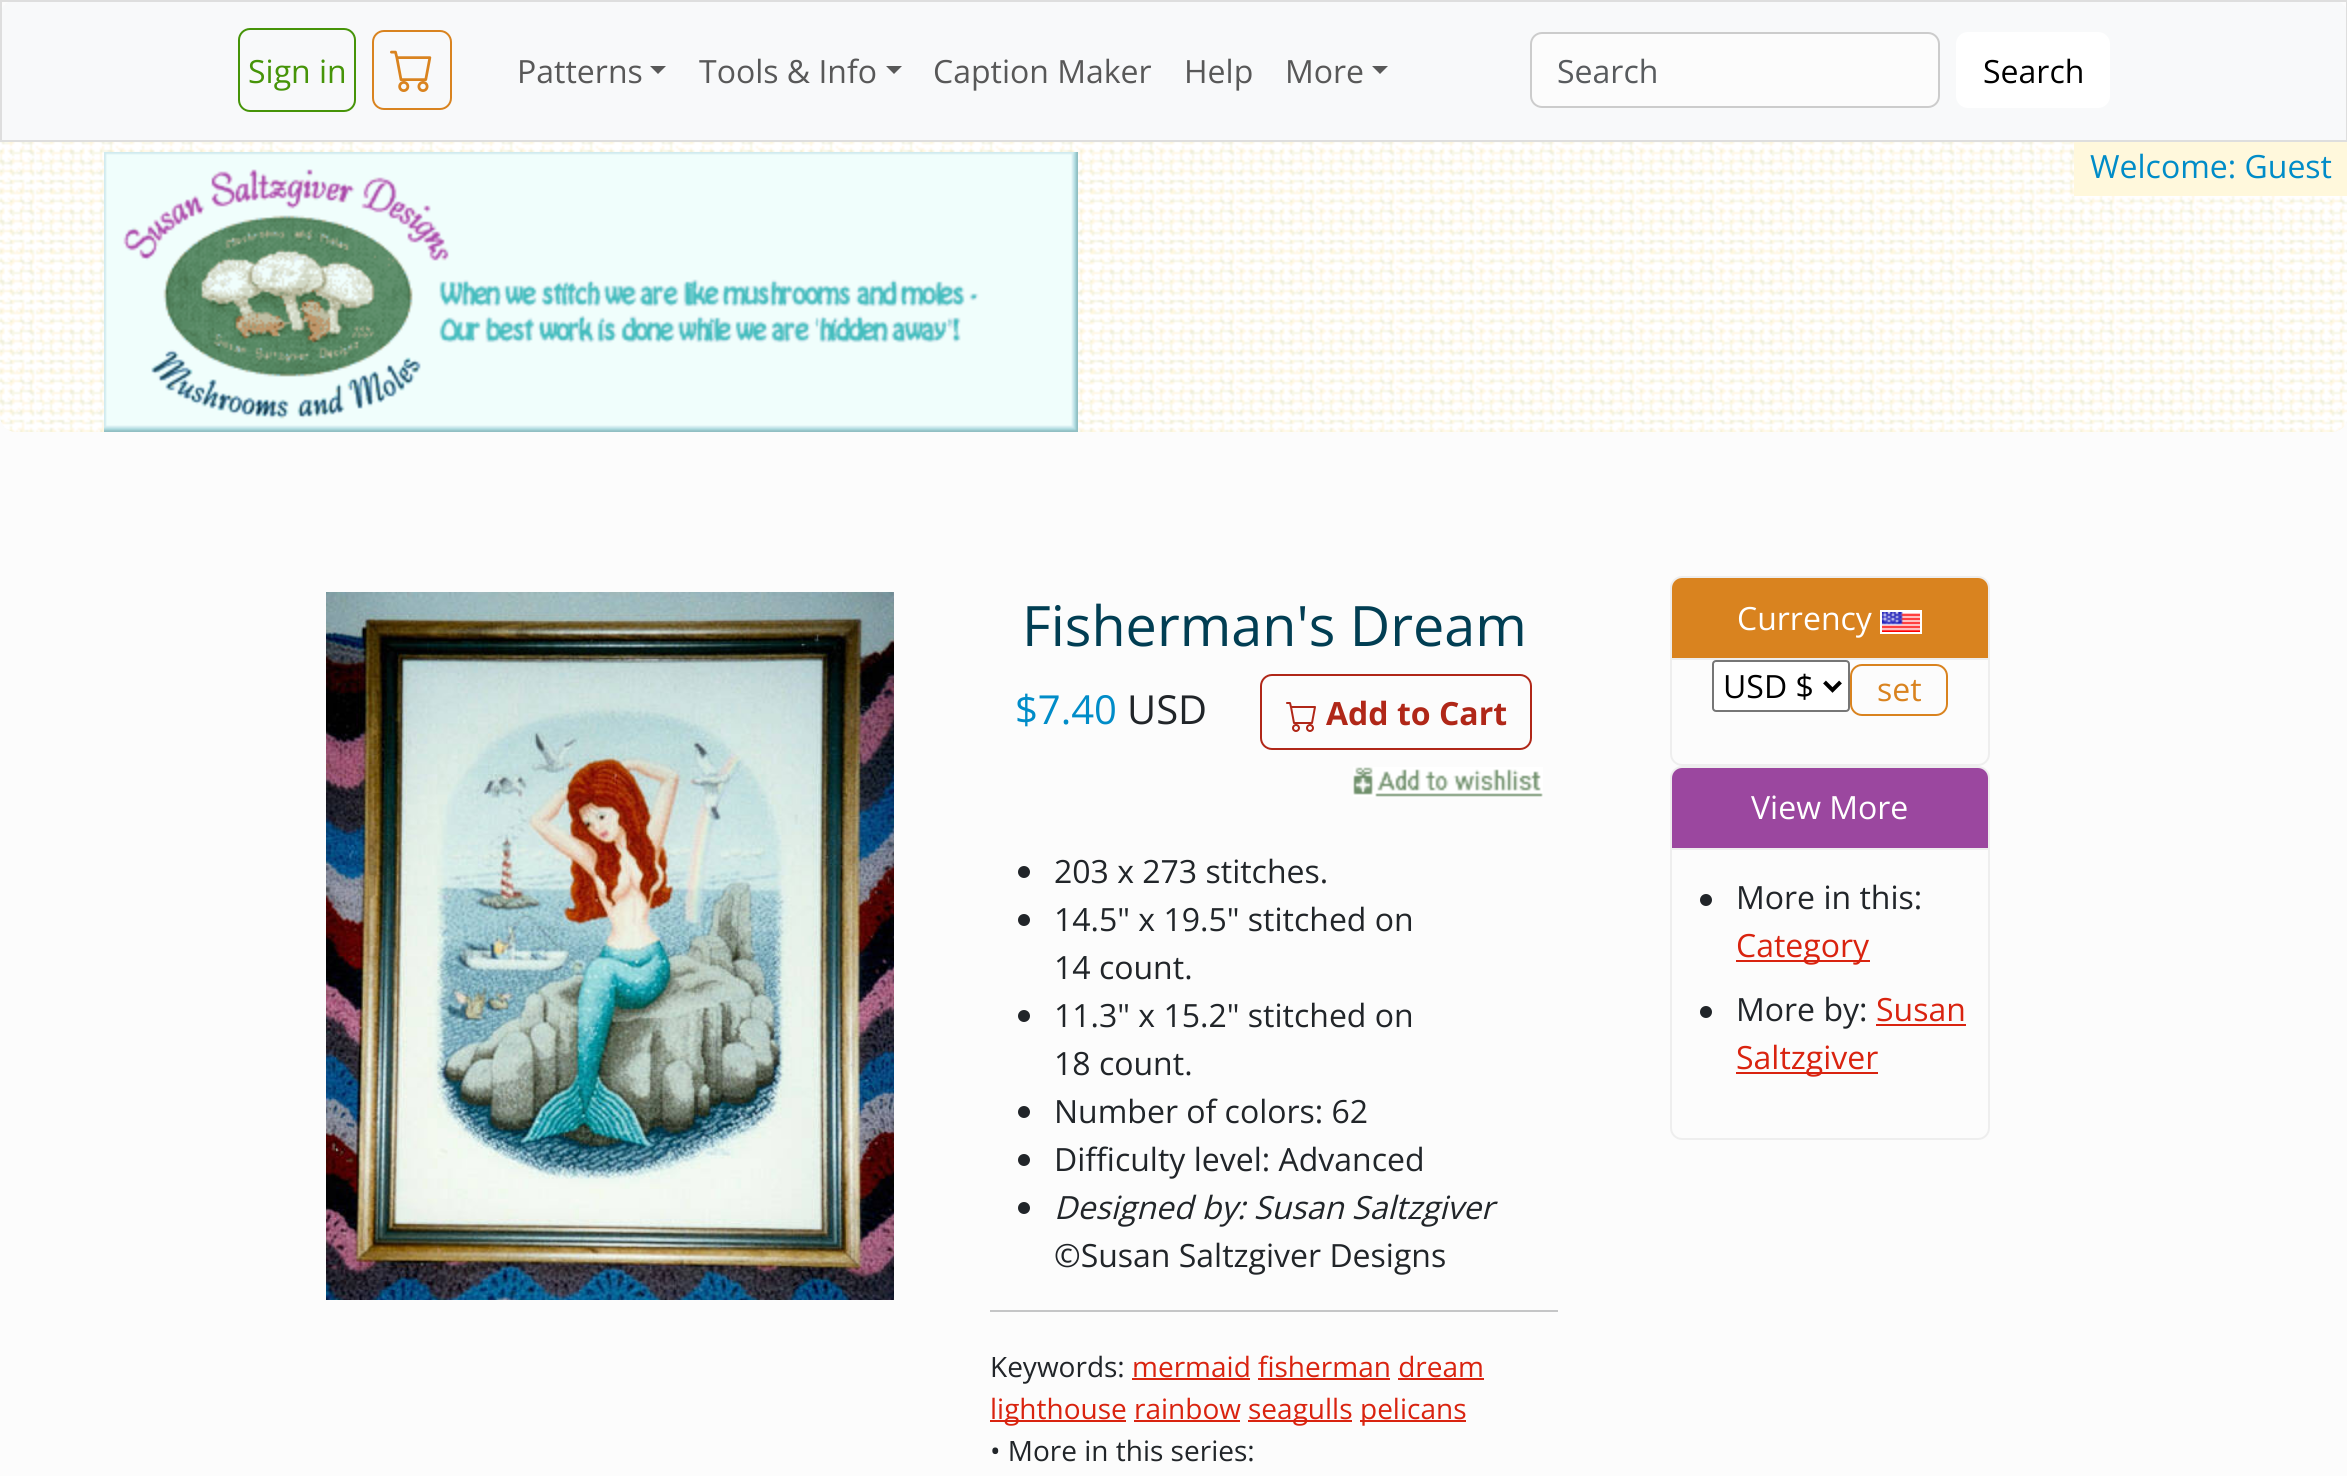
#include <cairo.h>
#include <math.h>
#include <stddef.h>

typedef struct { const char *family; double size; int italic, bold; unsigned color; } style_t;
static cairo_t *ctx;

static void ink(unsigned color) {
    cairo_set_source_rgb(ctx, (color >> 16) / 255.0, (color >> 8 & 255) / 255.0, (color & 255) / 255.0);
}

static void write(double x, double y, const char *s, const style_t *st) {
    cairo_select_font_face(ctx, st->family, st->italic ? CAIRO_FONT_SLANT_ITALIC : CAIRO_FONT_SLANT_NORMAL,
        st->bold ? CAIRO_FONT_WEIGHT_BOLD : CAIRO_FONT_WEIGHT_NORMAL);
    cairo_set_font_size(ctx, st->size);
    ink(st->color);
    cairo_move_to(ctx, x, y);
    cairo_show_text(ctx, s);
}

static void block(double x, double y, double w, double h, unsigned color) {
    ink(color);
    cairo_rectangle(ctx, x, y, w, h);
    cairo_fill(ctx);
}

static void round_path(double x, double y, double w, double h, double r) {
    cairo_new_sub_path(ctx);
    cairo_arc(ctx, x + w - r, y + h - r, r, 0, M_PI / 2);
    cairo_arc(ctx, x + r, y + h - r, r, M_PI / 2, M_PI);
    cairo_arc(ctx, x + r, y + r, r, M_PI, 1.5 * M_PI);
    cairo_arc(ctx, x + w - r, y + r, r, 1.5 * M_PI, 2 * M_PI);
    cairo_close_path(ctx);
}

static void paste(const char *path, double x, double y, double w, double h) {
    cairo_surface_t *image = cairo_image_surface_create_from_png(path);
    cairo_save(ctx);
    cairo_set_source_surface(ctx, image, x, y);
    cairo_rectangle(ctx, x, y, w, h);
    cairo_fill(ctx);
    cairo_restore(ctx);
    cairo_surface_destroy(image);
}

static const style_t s1 = {"Open Sans", 32, 0, 0, 0x469408};
static const style_t s2 = {"Open Sans", 32, 0, 0, 0x585858};
static const style_t s3 = {"Open Sans", 32, 0, 0, 0x585b5e};
static const style_t s4 = {"Open Sans", 32, 0, 0, 0x000000};
static const style_t s5 = {"Open Sans", 32, 0, 0, 0x008cc8};
static const style_t s6 = {"Open Sans", 55.75, 0, 0, 0x013e53};
static const style_t s7 = {"Open Sans", 40, 0, 0, 0x008cc8};
static const style_t s8 = {"Open Sans", 40, 0, 0, 0x212529};
static const style_t s9 = {"Open Sans", 32, 0, 1, 0xb02718};
static const style_t s10 = {"Open Sans", 32, 0, 0, 0x212529};
static const style_t s11 = {"Open Sans", 32, 1, 0, 0x212529};
static const style_t s12 = {"Open Sans", 28, 0, 0, 0x212529};
static const style_t s13 = {"Open Sans", 28, 0, 0, 0xd9230f};
static const style_t s14 = {"Open Sans", 32, 0, 0, 0xffffff};
static const style_t s15 = {"Open Sans", 32, 0, 0, 0xd9831f};
static const style_t s16 = {"Open Sans", 32, 0, 0, 0xd9230f};

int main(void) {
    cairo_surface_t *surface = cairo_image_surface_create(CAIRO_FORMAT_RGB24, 2347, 1476);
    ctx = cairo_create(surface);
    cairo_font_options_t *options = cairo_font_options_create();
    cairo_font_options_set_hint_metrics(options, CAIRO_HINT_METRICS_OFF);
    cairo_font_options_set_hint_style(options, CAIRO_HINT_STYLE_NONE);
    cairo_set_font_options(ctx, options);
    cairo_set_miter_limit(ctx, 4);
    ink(0xfcfcfc);
    cairo_paint(ctx);
    ink(0xf8f9fa);
    round_path(0, 0, 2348, 432, 16);
    cairo_fill(ctx);
    cairo_rectangle(ctx, 1, 1, 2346, 140);
    ink(0xdedede);
    cairo_stroke(ctx);
    round_path(239, 29, 116, 82, 11);
    ink(0x469408);
    cairo_stroke(ctx);
    write(248, 83, "Sign in", &s1);
    round_path(373, 31, 78, 78, 11);
    ink(0xd9831f);
    cairo_stroke(ctx);
    paste("pic1.png", 390, 50, 42, 42);
    write(517, 83, "Patterns", &s2);
    cairo_new_path(ctx);
    cairo_move_to(ctx, 650, 66);
    cairo_line_to(ctx, 666, 66);
    cairo_line_to(ctx, 658, 74);
    cairo_close_path(ctx);
    cairo_fill(ctx);
    write(699, 83, "Tools & Info", &s2);
    cairo_new_path(ctx);
    cairo_move_to(ctx, 886, 66);
    cairo_line_to(ctx, 902, 66);
    cairo_line_to(ctx, 894, 74);
    cairo_close_path(ctx);
    cairo_fill(ctx);
    write(933, 83, "Caption Maker", &s2);
    write(1184, 83, "Help", &s2);
    write(1285, 83, "More", &s2);
    cairo_new_path(ctx);
    cairo_move_to(ctx, 1372, 66);
    cairo_line_to(ctx, 1388, 66);
    cairo_line_to(ctx, 1380, 74);
    cairo_close_path(ctx);
    cairo_fill(ctx);
    ink(0xfcfcfc);
    round_path(1531, 33, 408, 74, 11);
    cairo_fill_preserve(ctx);
    ink(0xcccccc);
    cairo_stroke(ctx);
    write(1557, 83, "Search", &s3);
    ink(0xffffff);
    round_path(1956, 32, 154, 76, 12);
    cairo_fill(ctx);
    write(1983, 83, "Search", &s4);
    paste("pic2.png", 0, 142, 2347, 290);
    paste("pic3.png", 104, 152, 974, 280);
    block(2074, 142, 273, 54, 0xfff8dc);
    write(2090, 178, "Welcome: Guest", &s5);
    paste("pic4.png", 326, 592, 568, 708);
    write(1022, 646, "Fisherman's Dream", &s6);
    write(1015, 724, "$7.40", &s7);
    write(1127, 724, "USD", &s8);
    round_path(1261, 675, 270, 74, 11);
    ink(0xb02718);
    cairo_stroke(ctx);
    paste("pic5.png", 1286, 702, 30, 30);
    write(1326, 725, "Add to Cart", &s9);
    paste("pic6.png", 1353, 767, 190, 30);
    ink(0x212529);
    cairo_arc(ctx, 1024, 872, 6, 0, 2 * M_PI);
    cairo_fill(ctx);
    write(1054, 883, "203 x 273 stitches.", &s10);
    cairo_new_path(ctx);
    cairo_arc(ctx, 1024, 920, 6, 0, 2 * M_PI);
    cairo_fill(ctx);
    write(1054, 931, "14.5\" x 19.5\" stitched on", &s10);
    write(1054, 979, "14 count.", &s10);
    cairo_new_path(ctx);
    cairo_arc(ctx, 1024, 1016, 6, 0, 2 * M_PI);
    cairo_fill(ctx);
    write(1054, 1027, "11.3\" x 15.2\" stitched on", &s10);
    write(1054, 1075, "18 count.", &s10);
    cairo_new_path(ctx);
    cairo_arc(ctx, 1024, 1112, 6, 0, 2 * M_PI);
    cairo_fill(ctx);
    write(1054, 1123, "Number of colors: 62", &s10);
    cairo_new_path(ctx);
    cairo_arc(ctx, 1024, 1160, 6, 0, 2 * M_PI);
    cairo_fill(ctx);
    write(1054, 1171, "Difficulty level: Advanced", &s10);
    cairo_new_path(ctx);
    cairo_arc(ctx, 1024, 1208, 6, 0, 2 * M_PI);
    cairo_fill(ctx);
    write(1054, 1219, "Designed by: Susan Saltzgiver", &s11);
    write(1054, 1267, "©Susan Saltzgiver Designs", &s10);
    block(990, 1310, 568, 2, 0xc5c6c7);
    write(990, 1377, "Keywords:", &s12);
    write(1132, 1377, "mermaid fisherman dream", &s13);
    block(1132, 1378, 118, 2, 0xd9230f);
    block(1258, 1378, 132, 2, 0xd9230f);
    block(1398, 1378, 86, 2, 0xd9230f);
    block(990, 1420, 136, 2, 0xd9230f);
    write(990, 1419, "lighthouse rainbow", &s13);
    block(1248, 1420, 104, 2, 0xd9230f);
    write(1248, 1419, "seagulls", &s13);
    block(1360, 1420, 106, 2, 0xd9230f);
    write(1360, 1419, "pelicans", &s13);
    block(1134, 1420, 106, 2, 0xd9230f);
    write(990, 1461, "• More in this series:", &s12);
    round_path(1671, 577, 318, 188, 11);
    ink(0xeeeeee);
    cairo_stroke(ctx);
    ink(0xd9831f);
    cairo_new_path(ctx);
    cairo_move_to(ctx, 1682, 578);
    cairo_line_to(ctx, 1978, 578);
    cairo_curve_to(ctx, 1983.5, 578, 1988, 582.5, 1988, 588);
    cairo_line_to(ctx, 1988, 660);
    cairo_line_to(ctx, 1672, 660);
    cairo_line_to(ctx, 1672, 588);
    cairo_curve_to(ctx, 1672, 582.5, 1676.5, 578, 1682, 578);
    cairo_close_path(ctx);
    cairo_fill(ctx);
    block(1672, 658, 316, 2, 0xeeeeee);
    write(1737, 630, "Currency", &s14);
    cairo_rectangle(ctx, 1881, 611, 40, 22);
    cairo_stroke(ctx);
    paste("pic7.png", 1882, 612, 38, 20);
    round_path(1713, 661, 136, 50, 3);
    cairo_fill_preserve(ctx);
    ink(0x767676);
    cairo_stroke(ctx);
    cairo_new_path(ctx);
    cairo_move_to(ctx, 1824.5, 682);
    cairo_line_to(ctx, 1832.5, 690);
    cairo_line_to(ctx, 1840.5, 682);
    ink(0x000000);
    cairo_set_line_width(ctx, 4);
    cairo_stroke(ctx);
    write(1723, 698, "USD $", &s4);
    round_path(1851, 665, 96, 50, 11);
    ink(0xd9831f);
    cairo_set_line_width(ctx, 2);
    cairo_stroke(ctx);
    write(1877, 701, "set", &s15);
    round_path(1671, 767, 318, 372, 11);
    ink(0xeeeeee);
    cairo_stroke(ctx);
    ink(0x9b479f);
    cairo_new_path(ctx);
    cairo_move_to(ctx, 1682, 768);
    cairo_line_to(ctx, 1978, 768);
    cairo_curve_to(ctx, 1983.5, 768, 1988, 772.5, 1988, 778);
    cairo_line_to(ctx, 1988, 850);
    cairo_line_to(ctx, 1672, 850);
    cairo_line_to(ctx, 1672, 778);
    cairo_curve_to(ctx, 1672, 772.5, 1676.5, 768, 1682, 768);
    cairo_close_path(ctx);
    cairo_fill(ctx);
    block(1672, 848, 316, 2, 0xeeeeee);
    write(1751, 819, "View More", &s14);
    ink(0x212529);
    cairo_new_path(ctx);
    cairo_arc(ctx, 1706, 900, 6, 0, 2 * M_PI);
    cairo_fill(ctx);
    write(1736, 909, "More in this:", &s10);
    block(1736, 960, 134, 2, 0xd9230f);
    write(1736, 957, "Category", &s16);
    ink(0x212529);
    cairo_new_path(ctx);
    cairo_arc(ctx, 1706, 1012, 6, 0, 2 * M_PI);
    cairo_fill(ctx);
    write(1736, 1021, "More by:", &s10);
    write(1876, 1021, "Susan", &s16);
    block(1876, 1024, 90, 2, 0xd9230f);
    block(1736, 1072, 142, 2, 0xd9230f);
    write(1736, 1069, "Saltzgiver", &s16);
    cairo_surface_write_to_png(surface, "screenshot.png");
    cairo_font_options_destroy(options);
    cairo_destroy(ctx);
    cairo_surface_destroy(surface);
    return 0;
}
